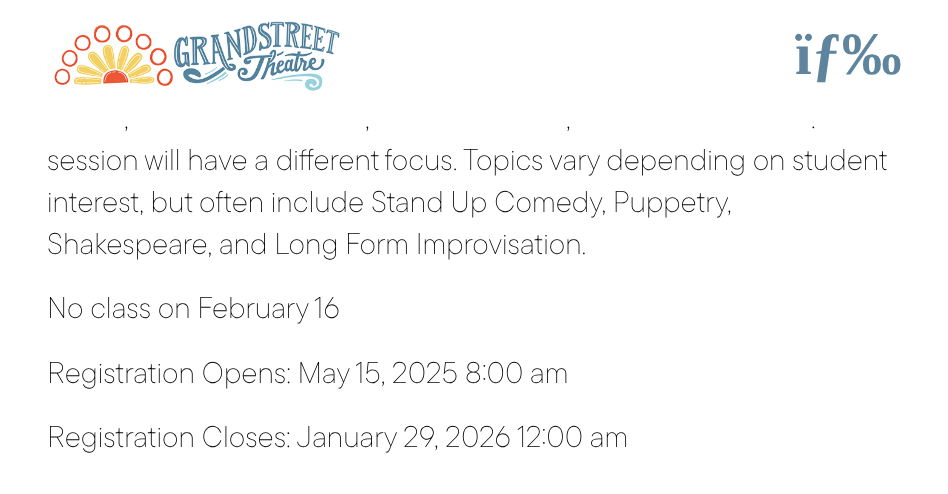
<svg xmlns="http://www.w3.org/2000/svg" width="948" height="494" viewBox="0 0 948 494">
  <rect width="100%" height="100%" fill="#fff"/>
  <image x="54" y="21" width="286" height="70" href="img/1.png"/>
  <text x="795" y="74" font-family="Liberation Serif" font-size="60" font-weight="bold" fill="#5f859e">ïƒ‰</text>
  <g font-family="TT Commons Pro" font-size="30" font-weight="100" fill="#000">
    <text x="124" y="128">,</text>
    <text x="365" y="128">,</text>
    <text x="566" y="128">,</text>
    <text x="811" y="128">.</text>
    <text x="47" y="170">session will have a different focus. Topics vary depending on student</text>
    <text x="47" y="212">interest, but often include Stand Up Comedy, Puppetry,</text>
    <text x="47" y="254">Shakespeare, and Long Form Improvisation.</text>
    <text x="47" y="318">No class on February 16</text>
    <text x="47" y="383">Registration Opens: May 15, 2025 8:00 am</text>
    <text x="47" y="447">Registration Closes: January 29, 2026 12:00 am</text>
  </g>
</svg>
